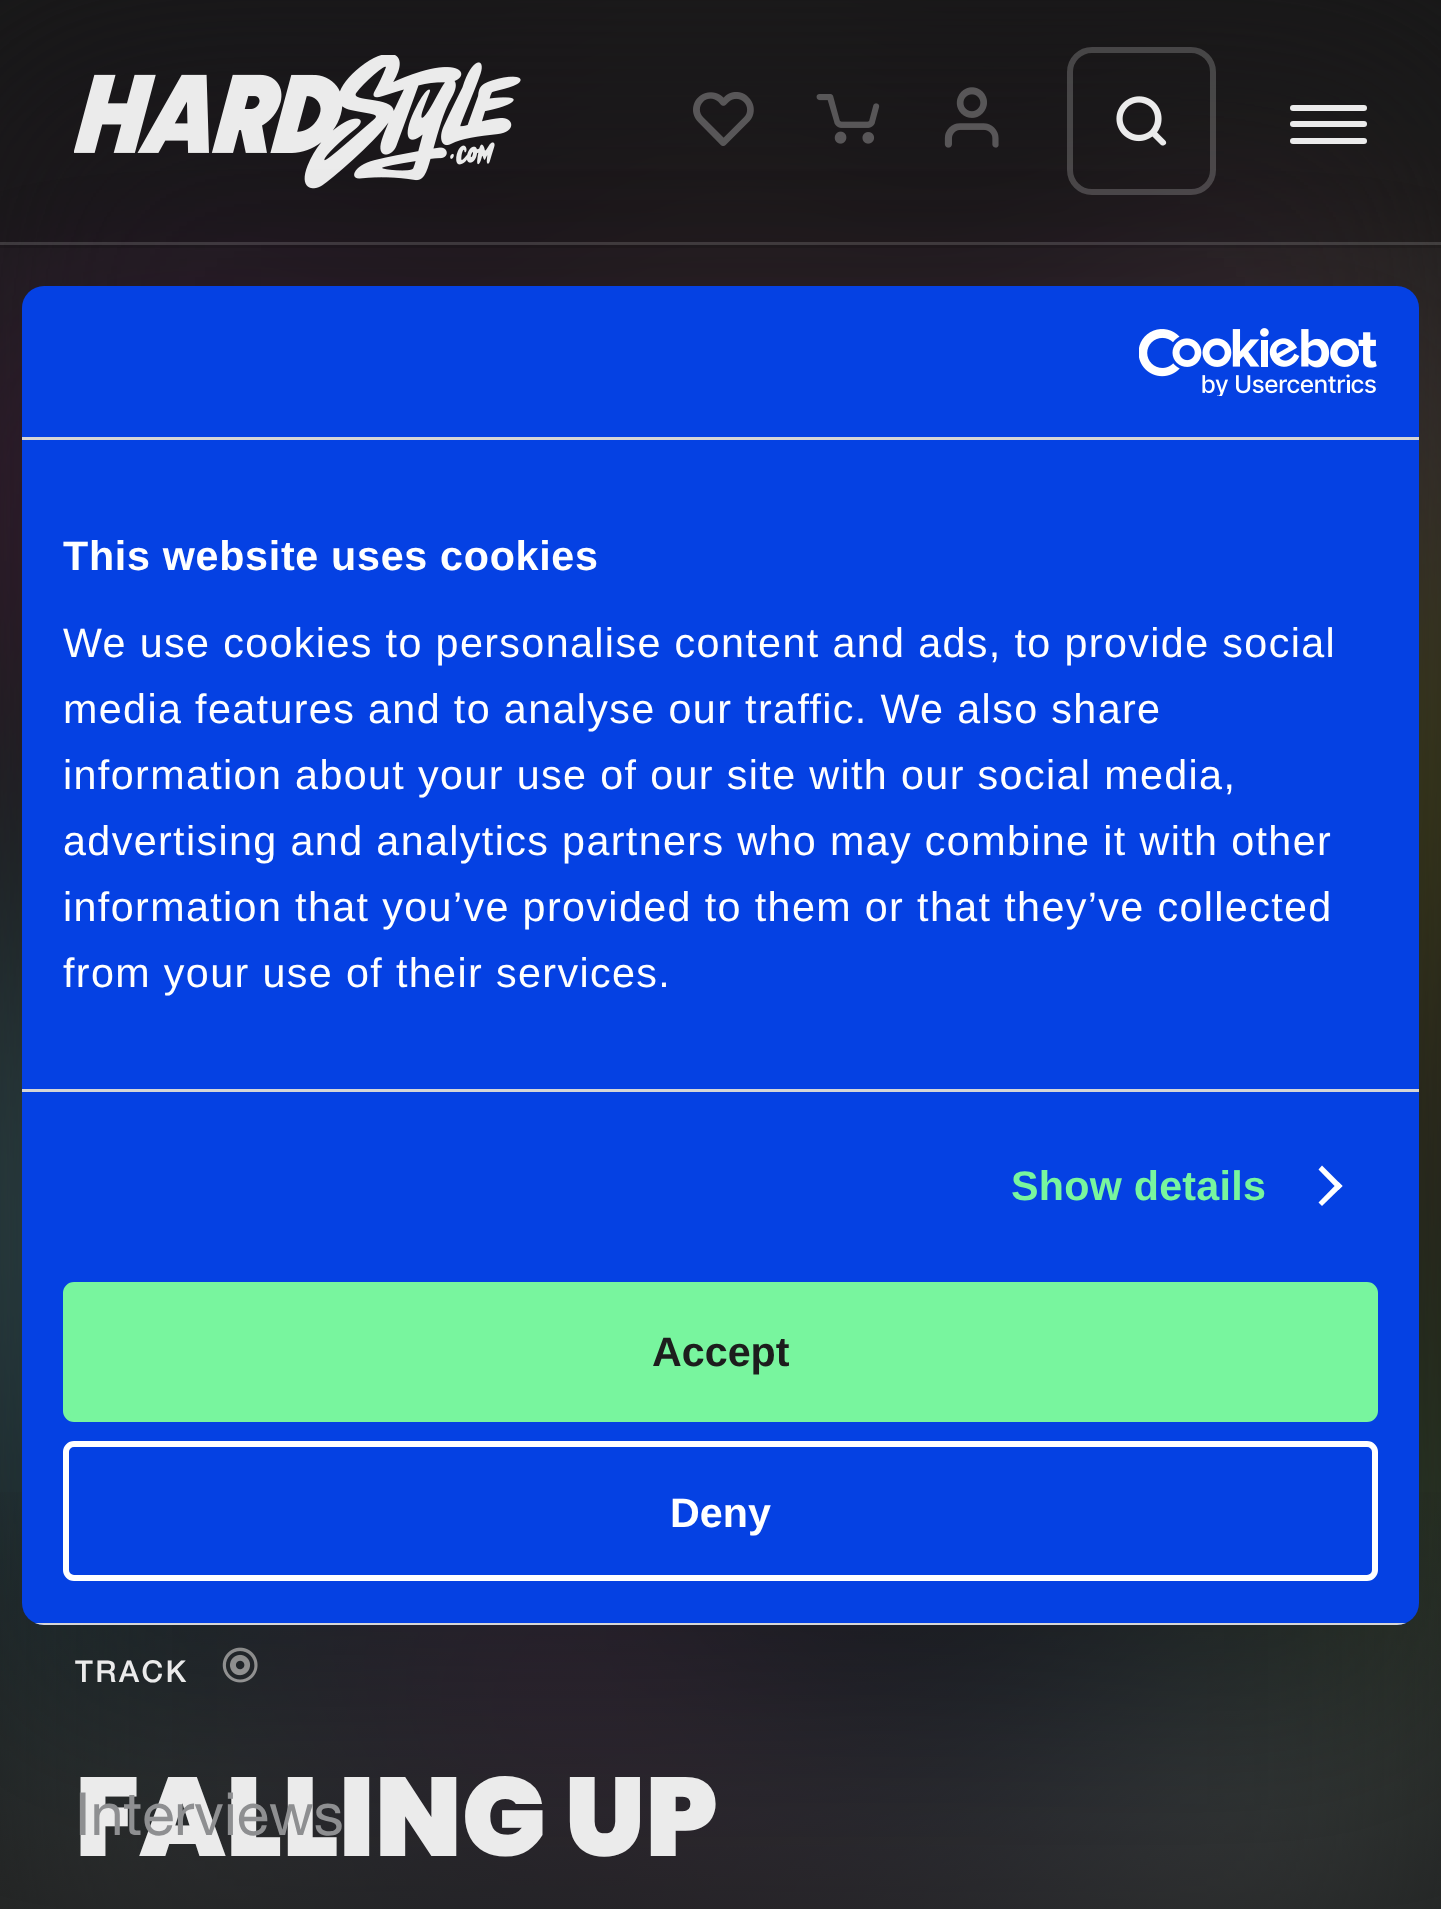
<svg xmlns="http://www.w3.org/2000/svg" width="1441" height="1909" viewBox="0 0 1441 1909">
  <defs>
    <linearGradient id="g1" gradientUnits="userSpaceOnUse" x1="0" y1="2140" x2="0" y2="1444"><stop offset="0" stop-color="#1d1d1d"/><stop offset="1" stop-color="#1d1d1d" stop-opacity="0"/></linearGradient>
    <clipPath id="clip1"><rect x="22" y="286" width="1397" height="1339" rx="22"/></clipPath>
  </defs>
  <rect width="100%" height="100%" fill="#1d1d1d"/>
  <image x="0" y="0" width="1441" height="1909" href="img/2.png"/>
  <path d="M0 1492h1441v417H0z" fill="url(#g1)"/>
  <image x="222" y="1647" width="36" height="36" href="img/3.png"/>
  <path d="M0 0h1441v248H0z" fill="#0000001a"/>
  <path d="M0 242h1441v3H0z" fill="#ffffff26"/>
  <image x="74" y="55" width="447" height="134" href="img/4.png"/>
  <image x="693" y="92" width="61" height="54" href="img/5.png"/>
  <image x="816" y="94" width="64" height="50" href="img/6.png"/>
  <image x="944" y="87" width="55" height="61" href="img/7.png"/>
  <rect x="1070" y="50" width="143" height="142" rx="22" fill="none" stroke="#ffffff33" stroke-width="6"/>
  <image x="1116" y="96" width="51" height="50" href="img/8.png"/>
  <rect x="1290" y="105" width="77" height="6" rx="3" fill="#ebebeb"/>
  <rect x="1290" y="121" width="77" height="6" rx="3" fill="#ebebeb"/>
  <rect x="1290" y="138" width="77" height="6" rx="3" fill="#ebebeb"/>
  <rect x="22" y="374" width="1397" height="1339" rx="22" fill="#0000004d" filter="blur(93.5px)"/>
  <rect x="22" y="286" width="1397" height="1339" rx="22" fill="#0541e3"/>
  <path d="M22 437h1397v3H22z" fill="#d6d6d6"/>
  <image x="1139" y="328" width="238" height="68" href="img/1.png"/>
  <path d="M22 1089h1397v3H22z" fill="#d6d6d6"/>
  <path d="M1322 1165.5L1342.5 1186L1338.5 1190L1318.5 1169.5Z" fill="#fff"/>
  <path d="M1338.5 1182L1342.5 1186L1322 1206L1318.5 1202.5Z" fill="#fff"/>
  <g clip-path="url(#clip1)">
    <path d="M35 1623h1371v2H35z" fill="#d6d6d6"/>
  </g>
  <rect x="66" y="1285" width="1309" height="134" rx="8" fill="#78f59e" stroke="#78f59e" stroke-width="6"/>
  <rect x="66" y="1444" width="1309" height="134" rx="8" fill="none" stroke="#fff" stroke-width="6"/>
  <text x="63" y="570" font-family="Liberation Sans" font-size="41.25" font-weight="bold" letter-spacing="0.7" fill="#fff">This website uses cookies</text>
  <g font-family="Liberation Sans" font-size="41.25" letter-spacing="1.38" fill="#fff">
    <text x="63" y="657">We use cookies to personalise content and ads, to provide social</text>
    <text x="63" y="723">media features and to analyse our traffic. We also share</text>
    <text x="63" y="789">information about your use of our site with our social media,</text>
    <text x="63" y="855">advertising and analytics partners who may combine it with other</text>
    <text x="63" y="921">information that you’ve provided to them or that they’ve collected</text>
    <text x="63" y="987">from your use of their services.</text>
  </g>
  <text x="1011" y="1200" font-family="Liberation Sans" font-size="41.25" font-weight="bold" letter-spacing="0.25" fill="#78f59e">Show details</text>
  <text x="652" y="1366" font-family="Liberation Sans" font-size="41.25" font-weight="bold" fill="#1d1d1d">Accept</text>
  <text x="670" y="1527" font-family="Liberation Sans" font-size="41.25" font-weight="bold" fill="#fff">Deny</text>
  <text x="75" y="1682" font-family="Helvetica Neue" font-size="30" font-weight="500" letter-spacing="2.5" fill="#ebebeb">TRACK</text>
  <text x="75" y="1856" font-family="Poppins" font-size="111.75" font-weight="900" fill="#ebebeb">FALLING UP</text>
  <text x="75" y="1835" font-family="Helvetica Neue" font-size="59.5" fill="#8e8f91">Interviews</text>
</svg>
